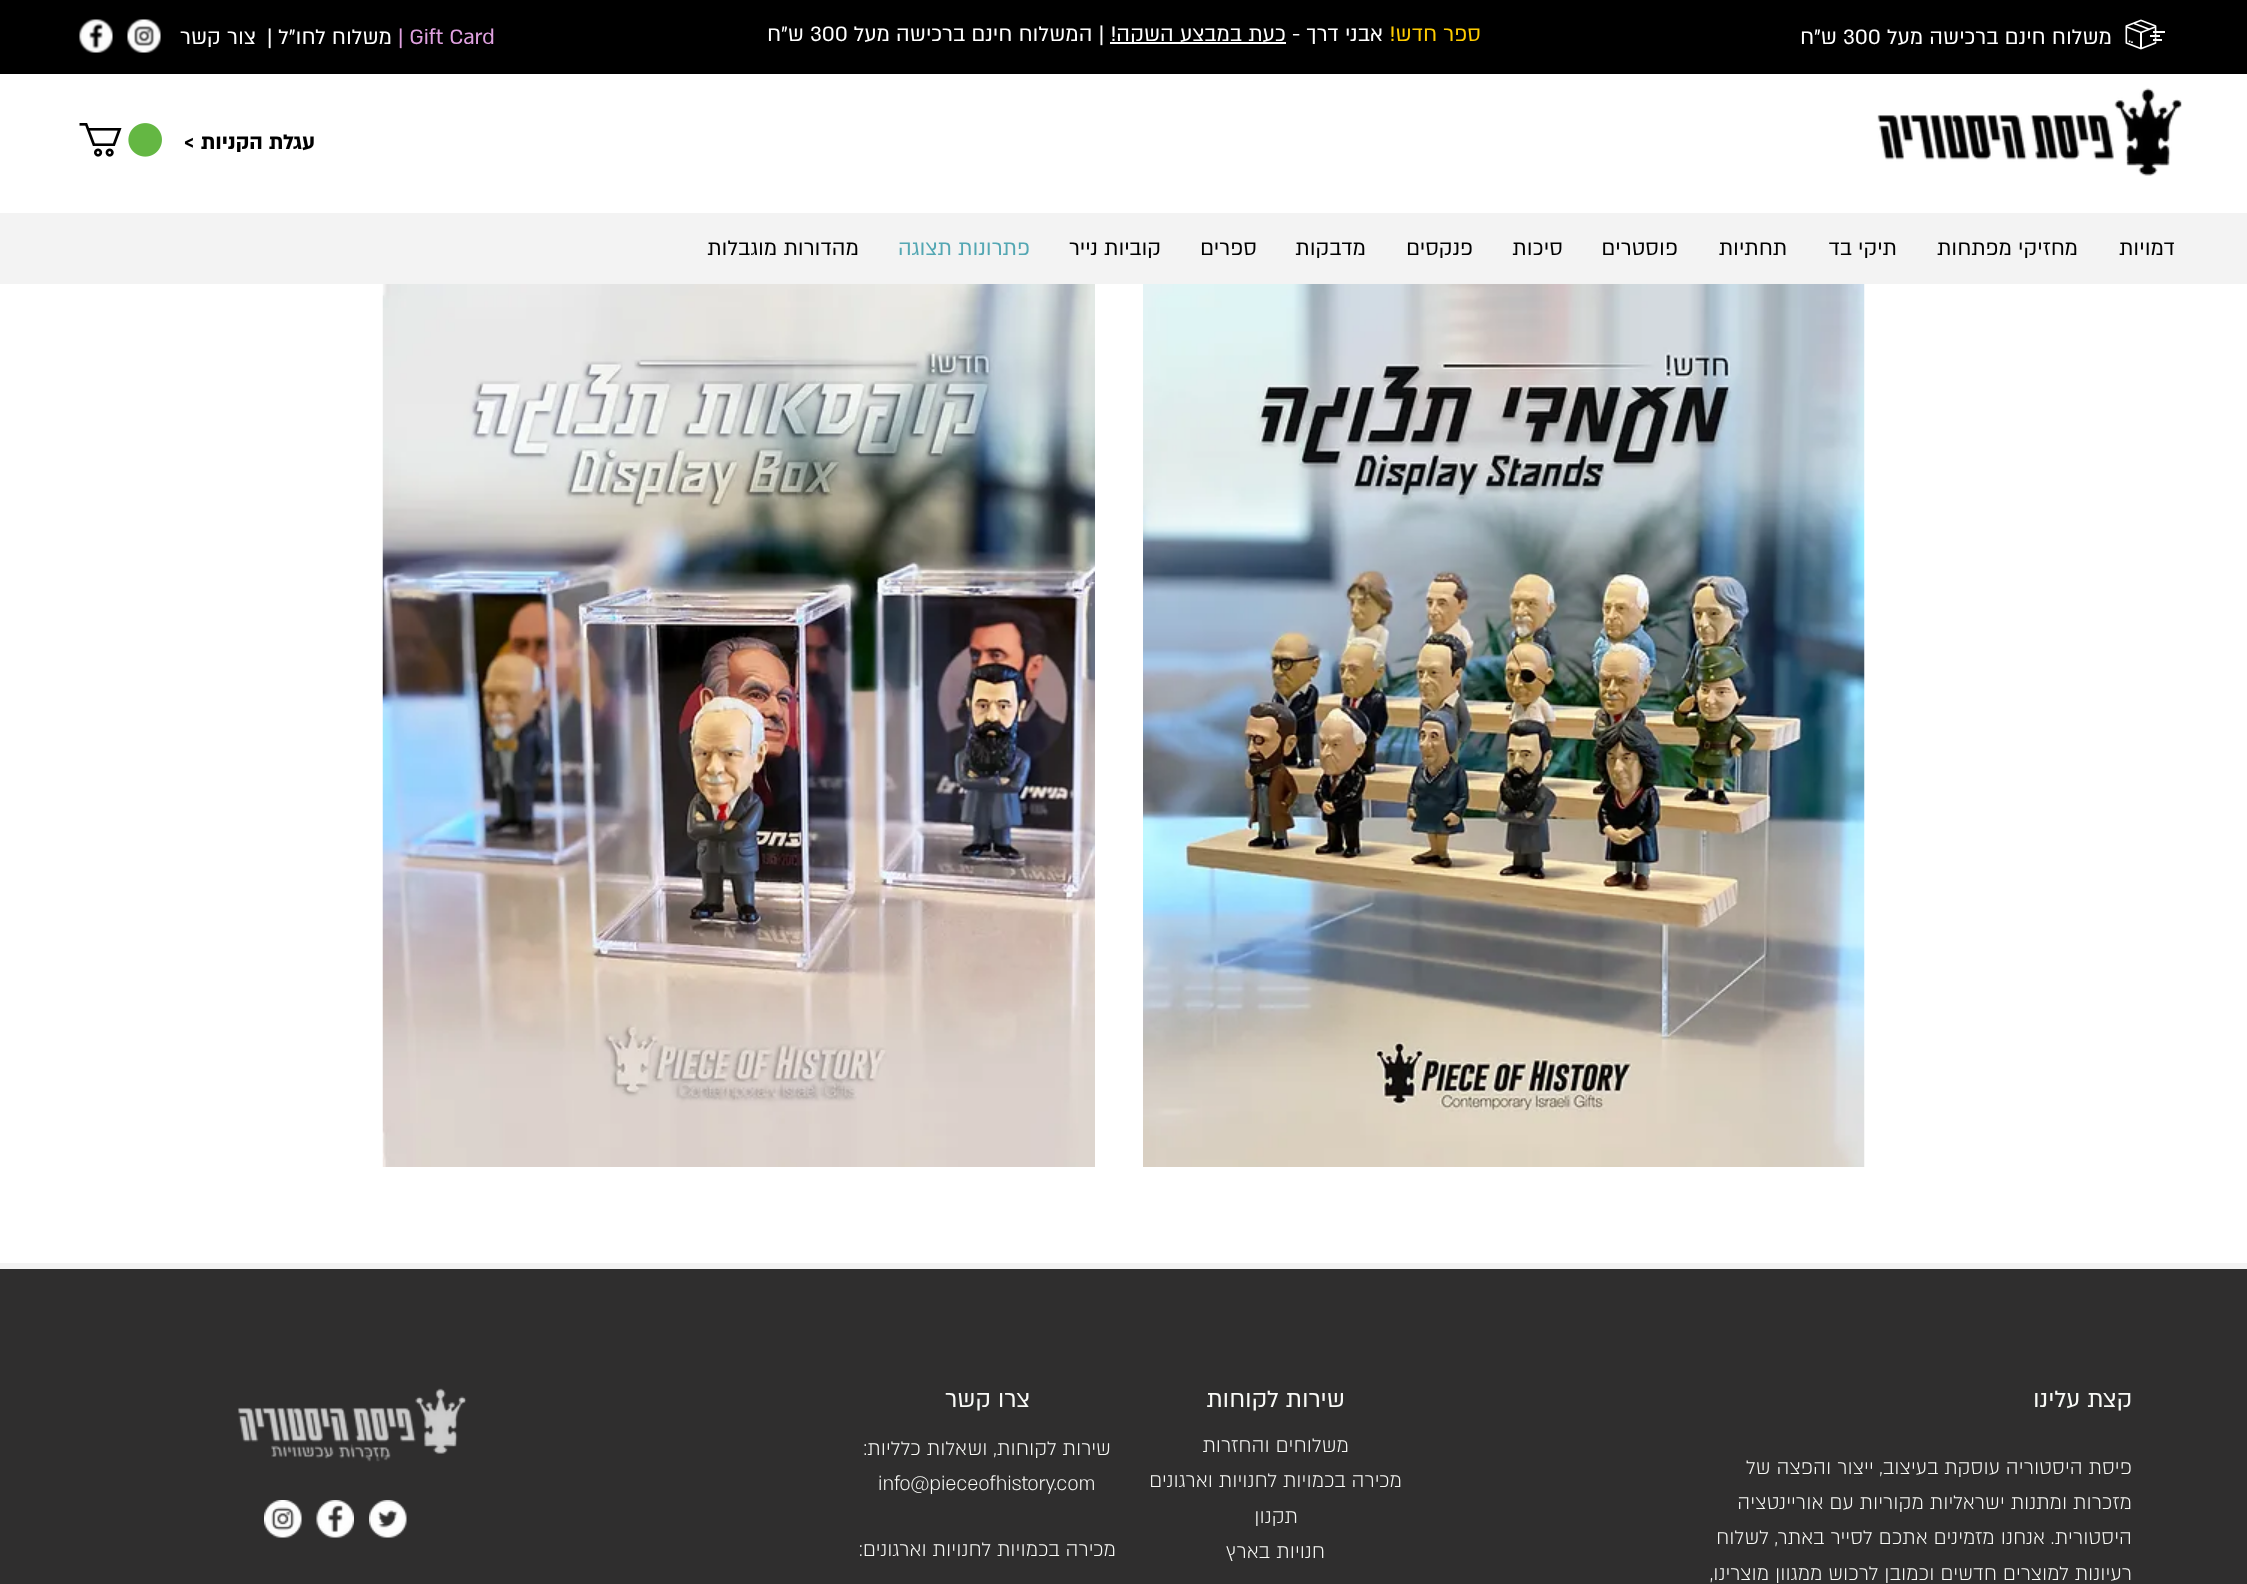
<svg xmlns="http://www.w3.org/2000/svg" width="2247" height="1584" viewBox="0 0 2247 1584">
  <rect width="100%" height="100%" fill="#fff"/>
  <path d="M0 0h2247v74H0z" fill="#000"/>
  <image x="2125" y="19" width="40" height="31" href="img/1.png"/>
  <path d="M1110 42h176v2H1110z" fill="#fff"/>
  <path d="M0 213h2247v71H0z" fill="#f3f3f3"/>
  <image x="127" y="19" width="34" height="34" href="img/2.png"/>
  <image x="79" y="19" width="34" height="34" href="img/3.png"/>
  <image x="79" y="123" width="83" height="34" href="img/4.png"/>
  <image x="1877" y="88" width="305" height="88" href="img/5.png"/>
  <image x="1143" y="284" width="722" height="883" href="img/6.png"/>
  <image x="382" y="284" width="713" height="883" href="img/7.png"/>
  <path d="M0 1269h2247v315H0z" fill="#2f2e2e"/>
  <path d="M0 1263h2247v6H0z" fill="#f3f3f3"/>
  <image x="237" y="1388" width="230" height="74" href="img/8.png"/>
  <image x="369" y="1500" width="38" height="38" href="img/9.png"/>
  <image x="316" y="1500" width="38" height="38" href="img/10.png"/>
  <image x="264" y="1500" width="38" height="38" href="img/11.png"/>
  <text x="2112" y="44" font-family="'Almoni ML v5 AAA'" font-size="24" direction="rtl" fill="#fff">משלוח חינם ברכישה מעל</text>
  <text x="1843" y="44" font-family="'Almoni ML v5 AAA'" font-size="24" fill="#fff">300</text>
  <text x="1837" y="44" font-family="'Almoni ML v5 AAA'" font-size="24" direction="rtl" fill="#fff">ש"ח</text>
  <text x="1481" y="41" font-family="'Almoni ML v5 AAA'" font-size="24" direction="rtl" fill="#fc0">ספר חדש!</text>
  <g font-family="'Almoni ML v5 AAA'" font-size="24" direction="rtl" fill="#fff">
    <text x="1383" y="41">אבני דרך -</text>
    <text x="1286" y="41">כעת במבצע השקה!</text>
    <text x="1104" y="41">| המשלוח חינם ברכישה מעל</text>
  </g>
  <text x="810" y="41" font-family="'Almoni ML v5 AAA'" font-size="24" fill="#fff">300</text>
  <text x="804" y="41" font-family="'Almoni ML v5 AAA'" font-size="24" direction="rtl" fill="#fff">ש"ח</text>
  <g font-family="'Almoni ML v5 AAA'" font-size="24" direction="rtl" fill="#000">
    <text x="2175" y="255">דמויות</text>
    <text x="2078" y="255">מחזיקי מפתחות</text>
    <text x="1897" y="255">תיקי בד</text>
    <text x="1787" y="255">תחתיות</text>
    <text x="1678" y="255">פוסטרים</text>
    <text x="1563" y="255">סיכות</text>
    <text x="1473" y="255">פנקסים</text>
    <text x="1366" y="255">מדבקות</text>
    <text x="1257" y="255">ספרים</text>
    <text x="1161" y="255">קוביות נייר</text>
  </g>
  <text x="1030" y="255" font-family="'Almoni ML v5 AAA'" font-size="24" direction="rtl" fill="#54a7b3">פתרונות תצוגה</text>
  <text x="859" y="255" font-family="'Almoni ML v5 AAA'" font-size="24" direction="rtl" fill="#000">מהדורות מוגבלות</text>
  <text x="398" y="44" font-family="'Almoni ML v5 AAA'" font-size="24" fill="#e0a1e0">| Gift Card</text>
  <text x="392" y="44" font-family="'Almoni ML v5 AAA'" font-size="24" direction="rtl" fill="#fff">משלוח לחו"ל</text>
  <text x="267" y="44" font-family="'Almoni ML v5 AAA'" font-size="24" fill="#fff">|</text>
  <text x="256" y="44" font-family="'Almoni ML v5 AAA'" font-size="24" direction="rtl" fill="#fff">צור קשר</text>
  <g font-family="'Almoni ML v5 AAA'" font-size="24" font-weight="bold" direction="rtl" fill="#000">
    <text x="315" y="149">עג</text>
    <text x="294" y="149">לת הקניות &gt;</text>
  </g>
  <text x="2132" y="1407" font-family="'Almoni ML v5 AAA'" font-size="27" direction="rtl" fill="#f9faf7">קצת עלינו</text>
  <g font-family="'Almoni ML v5 AAA'" font-size="22.5" font-weight="300" direction="rtl" fill="#f9faf7">
    <text x="2132" y="1474">פיסת היסטוריה עוסקת בעיצוב, ייצור והפצה של</text>
    <text x="2132" y="1509">מזכרות ומתנות ישראליות מקוריות עם אוריינטציה</text>
    <text x="2132" y="1544">היסטורית. אנחנו מזמינים אתכם לסייר באתר, לשלוח</text>
    <text x="2132" y="1580">רעיונות למוצרים חדשים וכמובן לרכוש ממגוון מוצרינו,</text>
  </g>
  <text x="1345" y="1407" font-family="'Almoni ML v5 AAA'" font-size="27" direction="rtl" fill="#f9faf7">שירות לקוחות</text>
  <g font-family="'Almoni ML v5 AAA'" font-size="22.5" font-weight="300" direction="rtl" fill="#f9faf7">
    <text x="1349" y="1452">משלוחים והחזרות</text>
    <text x="1402" y="1487">מכירה בכמויות לחנויות וארגונים</text>
    <text x="1298" y="1523">תקנון</text>
    <text x="1325" y="1558">חנ</text>
    <text x="1305" y="1558">ויות</text>
    <text x="1270" y="1558">בארץ</text>
  </g>
  <text x="1030" y="1407" font-family="'Almoni ML v5 AAA'" font-size="27" direction="rtl" fill="#f9faf7">צרו קשר</text>
  <g font-family="'Almoni ML v5 AAA'" font-size="22.5" font-weight="300" direction="rtl" fill="#f9faf7">
    <text x="1111" y="1455">שירות לקוחות, וש</text>
    <text x="967" y="1455">אלות כלליות:</text>
  </g>
  <text x="878" y="1490" font-family="'Almoni ML v5 AAA'" font-size="22.5" font-weight="300" fill="#f9faf7">info@pieceofhistory.com</text>
  <g font-family="'Almoni ML v5 AAA'" font-size="22.5" font-weight="300" direction="rtl" fill="#f9faf7">
    <text x="1116" y="1556">מכירה בכמויות לחנו</text>
    <text x="956" y="1556">יות וארגונים:</text>
  </g>
</svg>
